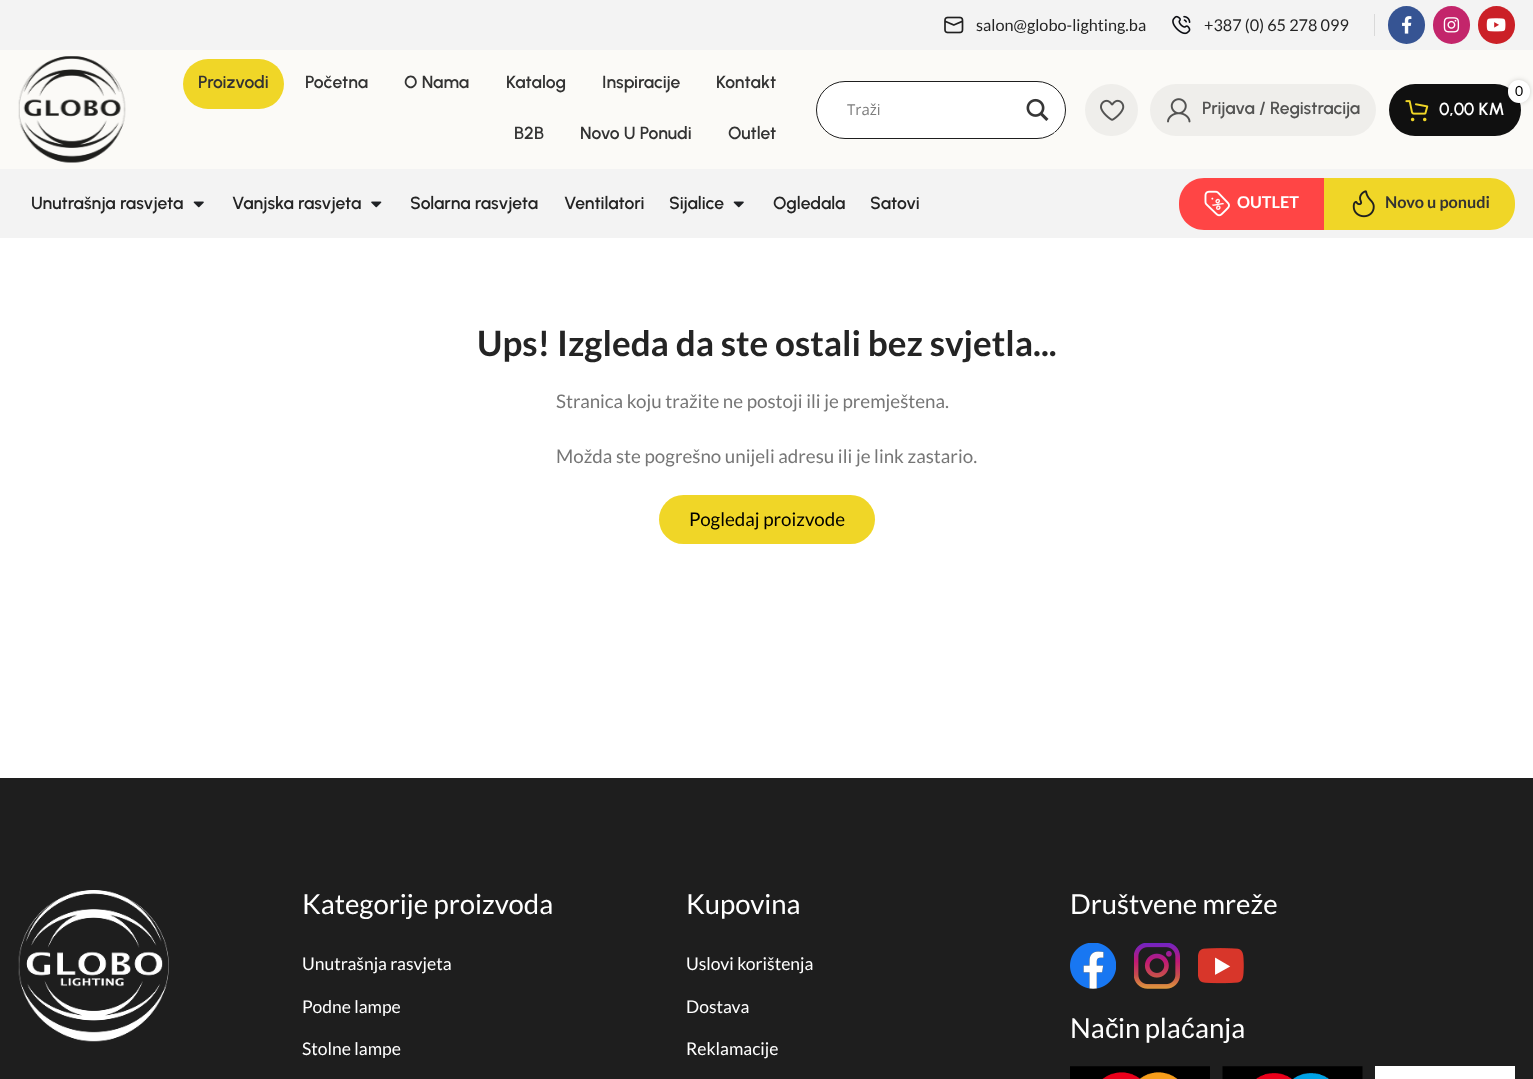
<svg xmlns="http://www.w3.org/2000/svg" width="1533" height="1079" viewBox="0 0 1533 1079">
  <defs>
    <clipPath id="clip1"><path d="M1020 84h35v52H1020z"/></clipPath>
    <clipPath id="clip2"><rect x="846" y="93" width="168" height="35" rx="17.5"/></clipPath>
  </defs>
  <rect width="100%" height="100%" fill="#fff"/>
  <path d="M0 0h1533v50H0z" fill="#f3f3f3"/>
  <image x="944" y="16" width="20" height="18" href="img/1.png"/>
  <image x="1172" y="15" width="19" height="20" href="img/2.png"/>
  <path d="M1374 14h1v22H1374z" fill="#d9d9d9"/>
  <rect x="1388" y="6" width="37" height="38" rx="18.5" fill="#365493"/>
  <image x="1402" y="16" width="10" height="18" href="img/3.png"/>
  <rect x="1433" y="6" width="37" height="38" rx="18.5" fill="#c3256b"/>
  <image x="1443" y="17" width="17" height="16" href="img/4.png"/>
  <rect x="1478" y="6" width="37" height="38" rx="18.5" fill="#cb2027"/>
  <image x="1486" y="18" width="20" height="14" href="img/5.png"/>
  <path d="M0 50h1533v119H0z" fill="#fbfaf7"/>
  <image x="18" y="56" width="108" height="107" href="img/6.png"/>
  <rect x="183" y="59" width="101" height="50" rx="25" fill="#f0d627"/>
  <rect x="816.5" y="81.5" width="249" height="57" rx="28.5" fill="#fff" stroke="#1e1e1e"/>
  <g clip-path="url(#clip1)">
    <path d="M1019 85V138H896V83H1038C1041 83 1045 84 1048 85ZM1054 133C1068 122 1068 99 1054 88Z" fill="#ffffffa3" fill-rule="evenodd"/>
  </g>
  <image x="1026" y="98" width="23" height="23" href="img/7.png"/>
  <rect x="1085" y="84" width="53" height="52" rx="26" fill="#efeeeb"/>
  <image x="1100" y="99" width="25" height="22" href="img/8.png"/>
  <rect x="1150" y="84" width="226" height="52" rx="26" fill="#efeeeb"/>
  <image x="1167" y="98" width="24" height="25" href="img/9.png"/>
  <rect x="1389" y="84" width="132" height="52" rx="26" fill="#101010"/>
  <rect x="1508" y="80" width="22" height="23" rx="11" fill="#0000002b" filter="blur(2.5px)"/>
  <rect x="1508" y="80" width="22" height="23" rx="11" fill="#fff"/>
  <image x="1405" y="100" width="24" height="22" href="img/10.png"/>
  <path d="M0 169h1533v69H0z" fill="#f3f3f3"/>
  <image x="193" y="201" width="11" height="7" href="img/11.png"/>
  <image x="371" y="201" width="11" height="7" href="img/12.png"/>
  <image x="733" y="201" width="11" height="7" href="img/11.png"/>
  <path d="M1204 178H1324V230H1204C1190 230 1179 219 1179 205V203C1179 189 1190 178 1204 178Z" fill="#ff4545"/>
  <image x="1204" y="190" width="26" height="27" href="img/13.png"/>
  <path d="M1324 178H1490C1504 178 1515 189 1515 203V205C1515 219 1504 230 1490 230H1324Z" fill="#f0d627"/>
  <image x="1352" y="190" width="23" height="28" href="img/14.png"/>
  <rect x="659" y="495" width="216" height="49" rx="24.5" fill="#f0d627"/>
  <path d="M0 778h1533v301H0z" fill="#1e1e1e"/>
  <image x="18" y="890" width="151" height="152" href="img/15.png"/>
  <image x="1070" y="943" width="46" height="46" href="img/16.png"/>
  <image x="1134" y="943" width="46" height="46" href="img/17.png"/>
  <image x="1198" y="948" width="46" height="36" href="img/18.png"/>
  <image x="1070" y="1066" width="140" height="13" href="img/19.png"/>
  <image x="1222" y="1066" width="141" height="13" href="img/20.png"/>
  <path d="M1375 1066h140v13H1375z" fill="#fff"/>
  <g font-family="Lato" font-size="16.25" fill="#242424">
    <text x="976" y="31">salon@globo-lighting.ba</text>
    <text x="1204" y="31">+387 (0) 65 278 099</text>
  </g>
  <g font-family="Urbanist" font-size="17.5" font-weight="600" fill="#333">
    <text x="198" y="88">Proizvodi</text>
    <text x="305" y="88">Početna</text>
    <text x="404" y="88">O Nama</text>
    <text x="506" y="88">Katalog</text>
    <text x="602" y="88">Inspiracije</text>
    <text x="716" y="88">Kontakt</text>
    <text x="514" y="139">B2B</text>
    <text x="580" y="139">Novo U Ponudi</text>
    <text x="728" y="139">Outlet</text>
  </g>
  <g clip-path="url(#clip2)">
    <text x="847" y="115" font-family="Open Sans" font-size="15" fill="#7d7d7d">Traži</text>
  </g>
  <text x="1202" y="114" font-family="Urbanist" font-size="17.5" font-weight="600" fill="#535352">Prijava / Registracija</text>
  <text x="1515" y="96" font-family="Lato" font-size="14" fill="#000">0</text>
  <text x="1439" y="115" font-family="Urbanist" font-size="17.5" font-weight="600" fill="#fff">0,00 KM</text>
  <g font-family="Urbanist" font-size="17.5" font-weight="600" fill="#242424">
    <text x="31" y="209">Unutrašnja rasvjeta</text>
    <text x="232" y="209">Vanjska rasvjeta</text>
    <text x="410" y="209">Solarna rasvjeta</text>
    <text x="564" y="209">Ventilatori</text>
    <text x="669" y="209">Sijalice</text>
    <text x="773" y="209">Ogledala</text>
    <text x="870" y="209">Satovi</text>
  </g>
  <text x="1237" y="208" font-family="Lato" font-size="16.25" font-weight="bold" fill="#fff">OUTLET</text>
  <text x="1385" y="208" font-family="Lato" font-size="16.25" font-weight="bold" fill="#333">Novo u ponudi</text>
  <text x="477" y="356" font-family="Lato" font-size="35" font-weight="bold" fill="#242424">Ups! Izgleda da ste ostali bez svjetla...</text>
  <g font-family="Lato" font-size="18.75" fill="#767676">
    <text x="556" y="408">Stranica koju tražite ne postoji ili je premještena.</text>
    <text x="556" y="463">Možda ste pogrešno unijeli adresu ili je link zastario.</text>
  </g>
  <text x="689" y="526" font-family="Lato" font-size="18.75" fill="#000">Pogledaj proizvode</text>
  <text x="302" y="914" font-family="Lato" font-size="27.5" fill="#fff">Kategorije proizvoda</text>
  <g font-family="Lato" font-size="17.5" fill="#fff">
    <text x="302" y="970">Unutrašnja rasvjeta</text>
    <text x="302" y="1013">Podne lampe</text>
    <text x="302" y="1055">Stolne lampe</text>
  </g>
  <text x="686" y="914" font-family="Lato" font-size="27.5" fill="#fff">Kupovina</text>
  <g font-family="Lato" font-size="17.5" fill="#fff">
    <text x="686" y="970">Uslovi korištenja</text>
    <text x="686" y="1013">Dostava</text>
    <text x="686" y="1055">Reklamacije</text>
  </g>
  <g font-family="Lato" font-size="27.5" fill="#fff">
    <text x="1070" y="914">Društvene mreže</text>
    <text x="1070" y="1038">Na</text>
  </g>
  <text x="1105" y="1038" font-family="Liberation Sans" font-size="27.5" fill="#fff">č</text>
  <text x="1118" y="1038" word-spacing="-1" font-family="Lato" font-size="27.5" fill="#fff">in pla</text>
  <text x="1181" y="1038" font-family="Liberation Sans" font-size="27.5" fill="#fff">ć</text>
  <text x="1195" y="1038" font-family="Lato" font-size="27.5" fill="#fff">anja</text>
</svg>
